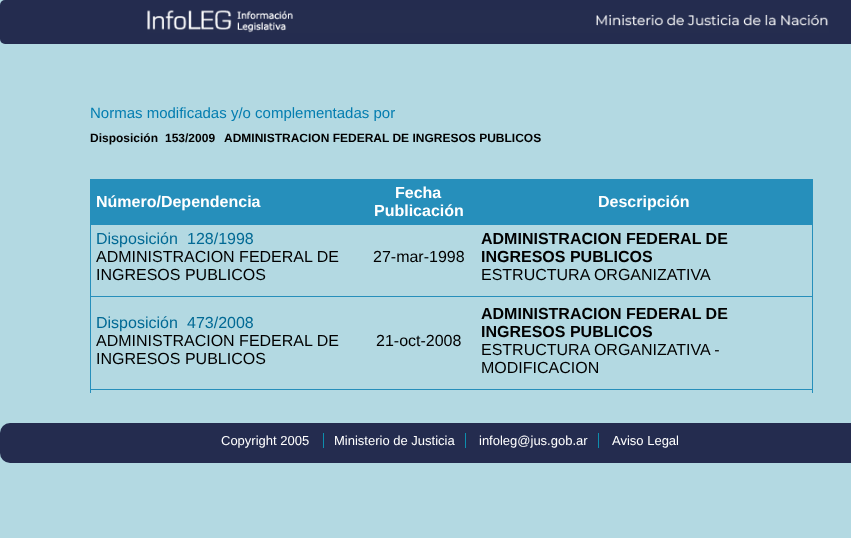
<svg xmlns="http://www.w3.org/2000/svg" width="851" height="538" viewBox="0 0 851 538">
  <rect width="100%" height="100%" fill="#b3d9e2"/>
  <rect width="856" height="44" rx="5" fill="#242c4f"/>
  <image x="147" y="10" width="682" height="23" href="img/1.png"/>
  <path d="M812 179h1v214H812z" fill="#268fbb"/>
  <path d="M90 179h1v214H90z" fill="#268fbb"/>
  <path d="M91 179h721v46H91z" fill="#268fbb"/>
  <path d="M91 296h721v1H91z" fill="#278fbb"/>
  <path d="M91 389h721v1H91z" fill="#278fbb"/>
  <rect y="423" width="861" height="40" rx="10" fill="#242c4f"/>
  <path d="M323 433h1v15H323z" fill="#0d8eae"/>
  <path d="M465 433h1v15H465z" fill="#0d8eae"/>
  <path d="M598 433h1v15H598z" fill="#0d8eae"/>
  <text x="90" y="118" font-family="Liberation Sans" font-size="15" fill="#037db0">Normas modificadas y/o complementadas por</text>
  <g font-family="Liberation Sans" font-size="12" font-weight="bold" fill="#000">
    <text x="90" y="142">Disposición</text>
    <text x="165" y="142">153/2009</text>
    <text x="224" y="142">ADMINISTRACION FEDERAL DE INGRESOS PUBLICOS</text>
  </g>
  <g font-family="Liberation Sans" font-size="16" font-weight="bold" fill="#fff">
    <text x="96" y="207">Número/Dependencia</text>
    <text x="395" y="198">Fecha</text>
    <text x="374" y="216">Publicación</text>
    <text x="598" y="207">Descripción</text>
  </g>
  <g font-family="Liberation Sans" font-size="16" fill="#016994">
    <text x="96" y="244">Disposición</text>
    <text x="187" y="244">128/1998</text>
  </g>
  <g font-family="Liberation Sans" font-size="16" fill="#000">
    <text x="96" y="262">ADMINISTRACION FEDERAL DE</text>
    <text x="96" y="280">INGRESOS PUBLICOS</text>
    <text x="373" y="262">27-mar-1998</text>
  </g>
  <g font-family="Liberation Sans" font-size="16" font-weight="bold" fill="#000">
    <text x="481" y="244">ADMINISTRACION FEDERAL DE</text>
    <text x="481" y="262">INGRESOS PUBLICOS</text>
  </g>
  <text x="481" y="280" font-family="Liberation Sans" font-size="16" fill="#000">ESTRUCTURA ORGANIZATIVA</text>
  <g font-family="Liberation Sans" font-size="16" fill="#016994">
    <text x="96" y="328">Disposición</text>
    <text x="187" y="328">473/2008</text>
  </g>
  <g font-family="Liberation Sans" font-size="16" fill="#000">
    <text x="96" y="346">ADMINISTRACION FEDERAL DE</text>
    <text x="96" y="364">INGRESOS PUBLICOS</text>
    <text x="376" y="346">21-oct-2008</text>
  </g>
  <g font-family="Liberation Sans" font-size="16" font-weight="bold" fill="#000">
    <text x="481" y="319">ADMINISTRACION FEDERAL DE</text>
    <text x="481" y="337">INGRESOS PUBLICOS</text>
  </g>
  <g font-family="Liberation Sans" font-size="16" fill="#000">
    <text x="481" y="355">ESTRUCTURA ORGANIZATIVA -</text>
    <text x="481" y="373">MODIFICACION</text>
  </g>
  <g font-family="Liberation Sans" font-size="13" fill="#fff">
    <text x="221" y="445">Copyright 2005</text>
    <text x="334" y="445">Ministerio de Justicia</text>
    <text x="479" y="445">infoleg@jus.gob.ar</text>
    <text x="612" y="445">Aviso Legal</text>
  </g>
</svg>
